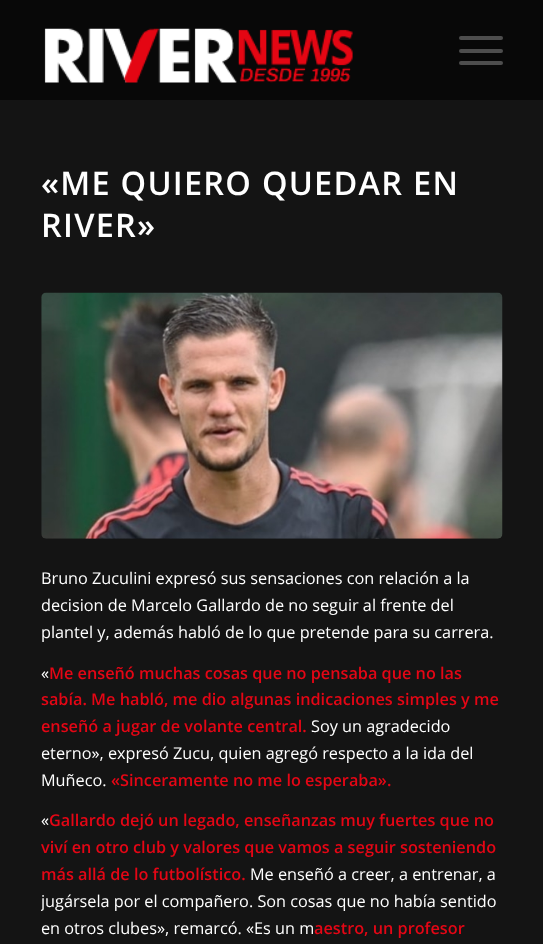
<svg xmlns="http://www.w3.org/2000/svg" width="543" height="944" viewBox="0 0 543 944">
  <defs>
    <clipPath id="clip1"><path d="M41 163h462v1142H41z"/></clipPath>
  </defs>
  <rect width="100%" height="100%" fill="#141414"/>
  <path d="M0 0h543v100H0z" fill="#080808"/>
  <image x="44" y="28" width="309" height="55" href="img/1.png"/>
  <rect x="459" y="49" width="44" height="4" rx="2" fill="#4d4d4d"/>
  <rect x="459" y="36" width="44" height="4" rx="2" fill="#4d4d4d"/>
  <rect x="459" y="61" width="44" height="4" rx="2" fill="#4d4d4d"/>
  <image x="41" y="292" width="462" height="247" href="img/2.png"/>
  <g font-family="Open Sans" font-size="32.5" font-weight="600" letter-spacing="1.25" fill="#fff">
    <text x="41" y="195">«ME QUIERO QUEDAR EN</text>
    <text x="41" y="237">RIVER»</text>
  </g>
  <g font-family="Open Sans" font-size="16.25" fill="#fff">
    <text x="41" y="584">Bruno Zuculini expresó sus sensaciones con relación a la</text>
    <text x="41" y="611">decision de Marcelo Gallardo de no seguir al frente del</text>
    <text x="41" y="638">plantel y, además habló de lo que pretende para su carrera.</text>
    <text x="41" y="679">«</text>
  </g>
  <g font-family="Open Sans" font-size="16.25" font-weight="600" fill="#e40615">
    <text x="49" y="679">Me enseñó muchas cosas que no pensaba que no las</text>
    <text x="41" y="705">sabía. Me habló, me dio algunas indicaciones simples y me</text>
    <text x="41" y="732">enseñó a jugar de volante central.</text>
  </g>
  <g font-family="Open Sans" font-size="16.25" fill="#fff">
    <text x="311" y="732">Soy un agradecido</text>
    <text x="41" y="759">eterno», expresó Zucu, quien agregó respecto a la ida del</text>
    <text x="41" y="786">Muñeco.</text>
  </g>
  <text x="111" y="786" font-family="Open Sans" font-size="16.25" font-weight="600" fill="#e40615">«Sinceramente no me lo esperaba».</text>
  <text x="41" y="826" font-family="Open Sans" font-size="16.25" fill="#fff">«</text>
  <g font-family="Open Sans" font-size="16.25" font-weight="600" fill="#e40615">
    <text x="49" y="826">Gallardo dejó un legado, enseñanzas muy fuertes que no</text>
    <text x="41" y="853">viví en otro club y valores que vamos a seguir sosteniendo</text>
    <text x="41" y="880">más allá de lo futbolístico.</text>
  </g>
  <text x="250" y="880" font-family="Open Sans" font-size="16.25" fill="#fff">Me enseñó a creer, a entrenar, a</text>
  <g clip-path="url(#clip1)">
    <text x="41" y="907" font-family="Open Sans" font-size="16.25" fill="#fff">jugársela por el compañero. Son cosas que no había sentido</text>
  </g>
  <text x="41" y="934" font-family="Open Sans" font-size="16.25" fill="#fff">en otros clubes», remarcó. «Es un m</text>
  <text x="314" y="934" font-family="Open Sans" font-size="16.25" font-weight="600" fill="#e40615">aestro, un profesor</text>
</svg>
